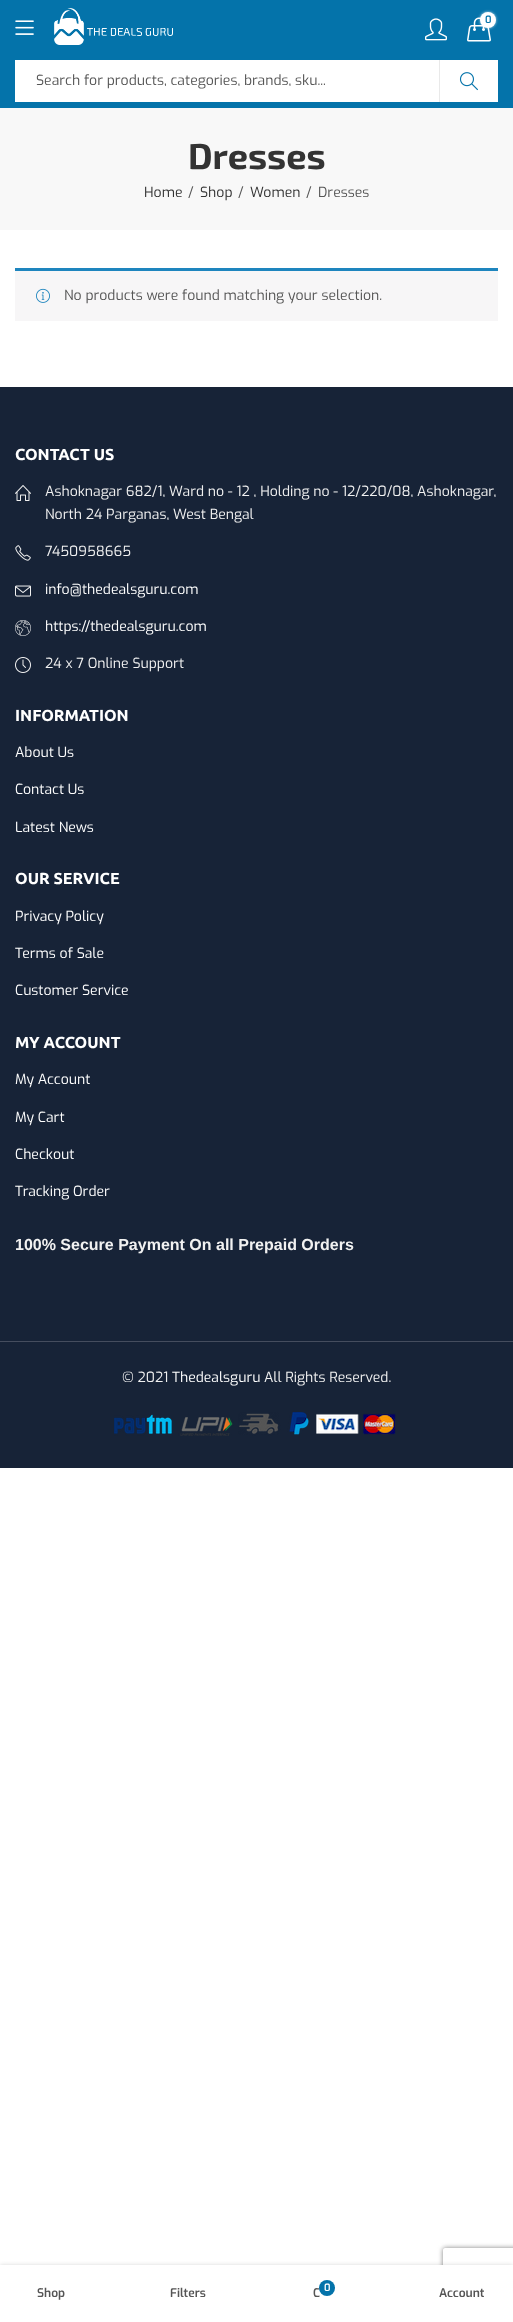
<svg xmlns="http://www.w3.org/2000/svg" width="513" height="2322" viewBox="0 0 513 2322">
  <defs>
    <clipPath id="clip1"><path d="M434 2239H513V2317H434ZM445 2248H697C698 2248 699 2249 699 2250V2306C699 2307 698 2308 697 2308H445C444 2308 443 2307 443 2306V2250C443 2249 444 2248 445 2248Z" clip-rule="evenodd"/></clipPath>
  </defs>
  <rect width="100%" height="100%" fill="#fff"/>
  <path d="M0 0h513v108H0z" fill="#0473aa"/>
  <image x="15" y="20" width="19" height="15" href="img/1.png"/>
  <image x="54" y="8" width="119" height="37" href="img/2.png"/>
  <image x="425" y="18" width="22" height="23" href="img/3.png"/>
  <image x="467" y="17" width="24" height="25" href="img/4.png"/>
  <rect x="480" y="12" width="16" height="16" rx="8" fill="#ffffffb3" filter="blur(1.5px)"/>
  <circle cx="488" cy="20" r="8" fill="#fff"/>
  <path d="M15 60h424v42H15z" fill="#fff"/>
  <path d="M439 60h1v42H439z" fill="#e9e9e9"/>
  <path d="M440 60h58v42H440z" fill="#fff"/>
  <image x="459" y="72" width="19" height="19" href="img/5.png"/>
  <path d="M0 108h513v122H0z" fill="#f8f8f8"/>
  <path d="M15 271h483v50H15z" fill="#f7f6f7"/>
  <path d="M15 268h483v3H15z" fill="#1e85be"/>
  <image x="36" y="288" width="14" height="15" href="img/6.png"/>
  <path d="M0 387h513v954H0z" fill="#172337"/>
  <image x="15" y="485" width="16" height="16" href="img/7.png"/>
  <image x="15" y="545" width="16" height="16" href="img/8.png"/>
  <image x="15" y="585" width="16" height="12" href="img/9.png"/>
  <image x="15" y="620" width="16" height="16" href="img/10.png"/>
  <image x="15" y="657" width="16" height="16" href="img/11.png"/>
  <path d="M0 1342h513v126H0z" fill="#172337"/>
  <path d="M0 1341h513v1H0z" fill="#454d5e"/>
  <image x="114" y="1412" width="282" height="24" href="img/12.png"/>
  <g clip-path="url(#clip1)">
    <rect x="443" y="2248" width="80" height="60" rx="2" fill="#808080" filter="blur(2.5px)"/>
  </g>
  <path d="M0 2265h513v57H0z" fill="#00000026" filter="blur(2px)"/>
  <path d="M0 2265h513v57H0z" fill="#fff"/>
  <rect x="319" y="2280" width="16" height="16" rx="8" fill="#ffffffb3" filter="blur(1.5px)"/>
  <text x="485" y="23" font-family="Exo" font-size="10" font-weight="600" fill="#0473aa">0</text>
  <text x="36" y="85" font-family="Exo" font-size="14" fill="#555">Search for products, categories, brands, sku...</text>
  <text x="188" y="169" font-family="'Exo 2'" font-size="36" font-weight="bold" fill="#333">Dresses</text>
  <text x="144" y="197" font-family="Exo" font-size="14" fill="#333">Home</text>
  <text x="188" y="197" font-family="Exo" font-size="14" fill="#555">/</text>
  <text x="200" y="197" font-family="Exo" font-size="14" fill="#333">Shop</text>
  <text x="238" y="197" font-family="Exo" font-size="14" fill="#555">/</text>
  <text x="250" y="197" font-family="Exo" font-size="14" fill="#333">Women</text>
  <g font-family="Exo" font-size="14" fill="#555">
    <text x="306" y="197">/</text>
    <text x="318" y="197">Dresses</text>
    <text x="64" y="300">No products were found matching your selection.</text>
  </g>
  <text x="15" y="460" font-family="Ubuntu" font-size="16" font-weight="bold" fill="#fff">CONTACT US</text>
  <g font-family="Exo" font-size="14" fill="#f1f1f1">
    <text x="45" y="496">Ashoknagar 682/1, Ward no - 12 , Holding no - 12/220/08, Ashoknagar,</text>
    <text x="45" y="519">North 24 Parganas, West Bengal</text>
    <text x="45" y="556">7450958665</text>
  </g>
  <g font-family="Exo" font-size="14" fill="#fff">
    <text x="45" y="594">info@thedealsguru.com</text>
    <text x="45" y="631">https://thedealsguru.com</text>
  </g>
  <text x="45" y="668" font-family="Exo" font-size="14" fill="#f1f1f1">24 x 7 Online Support</text>
  <text x="15" y="721" font-family="Ubuntu" font-size="16" font-weight="bold" fill="#fff">INFORMATION</text>
  <g font-family="Exo" font-size="14" fill="#fff">
    <text x="15" y="757">About Us</text>
    <text x="15" y="794">Contact Us</text>
    <text x="15" y="832">Latest News</text>
  </g>
  <text x="15" y="884" font-family="Ubuntu" font-size="16" font-weight="bold" fill="#fff">OUR SERVICE</text>
  <g font-family="Exo" font-size="14" fill="#fff">
    <text x="15" y="921">Privacy Policy</text>
    <text x="15" y="958">Terms of Sale</text>
    <text x="15" y="995">Customer Service</text>
  </g>
  <text x="15" y="1048" font-family="Ubuntu" font-size="16" font-weight="bold" fill="#fff">MY ACCOUNT</text>
  <g font-family="Exo" font-size="14" fill="#fff">
    <text x="15" y="1084">My Account</text>
    <text x="15" y="1122">My Cart</text>
    <text x="15" y="1159">Checkout</text>
    <text x="15" y="1196">Tracking Order</text>
  </g>
  <text x="15" y="1250" font-family="Liberation Sans" font-size="16" font-weight="bold" fill="#f1f1f1">100% Secure Payment On all Prepaid Orders</text>
  <text x="122" y="1382" font-family="Exo" font-size="14" fill="#f1f1f1">© 2021</text>
  <text x="172" y="1382" font-family="Exo" font-size="14" fill="#fff">Thedealsguru</text>
  <text x="264" y="1382" font-family="Exo" font-size="14" fill="#f1f1f1">All Rights Reserved.</text>
  <g font-family="Exo" font-size="12" font-weight="600" fill="#555">
    <text x="37" y="2297">Shop</text>
    <text x="170" y="2297">Filters</text>
    <text x="313" y="2297">C</text>
  </g>
  <circle cx="327" cy="2288" r="8" fill="#0473aa"/>
  <text x="324" y="2291" font-family="Exo" font-size="10" font-weight="600" fill="#fff">0</text>
  <text x="439" y="2297" font-family="Exo" font-size="12" font-weight="600" fill="#555">Account</text>
</svg>
